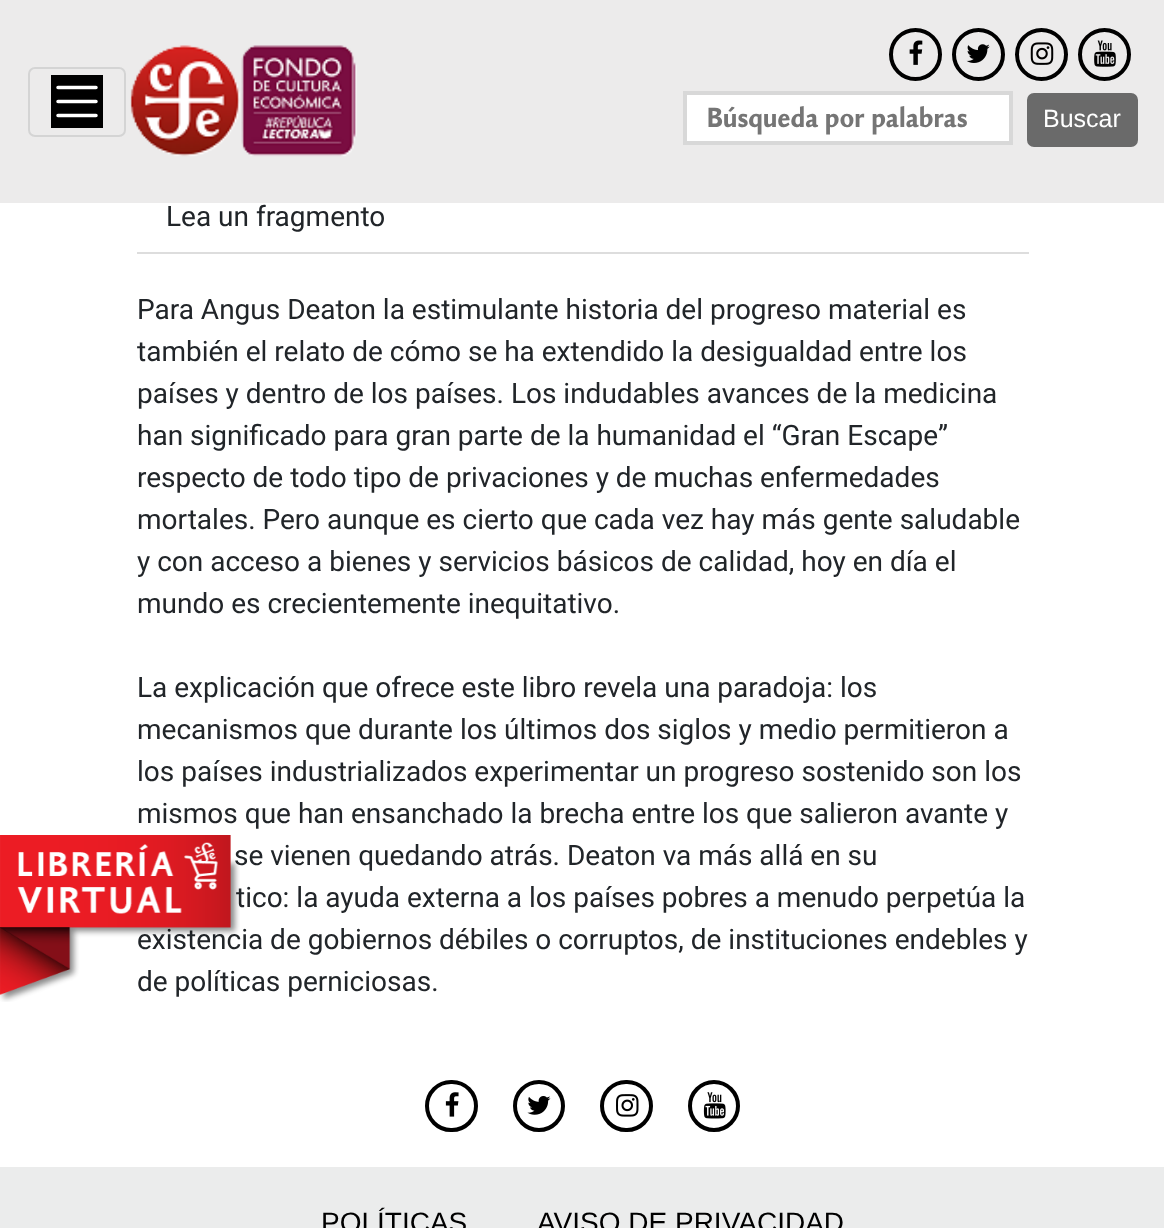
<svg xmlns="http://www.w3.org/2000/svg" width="1164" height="1228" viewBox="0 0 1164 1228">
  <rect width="100%" height="100%" fill="#fff"/>
  <path d="M0 0h1164v203H0z" fill="#ecebeb"/>
  <rect x="29" y="68" width="96" height="68" rx="6" fill="none" stroke="#d4d4d4" stroke-width="2"/>
  <path d="M51 75h52v53H51z" fill="#000"/>
  <path d="M58 87.5H96M58 101.5H96M58 115.5H96" fill="none" stroke="#fff" stroke-width="3.5" stroke-linecap="round"/>
  <image x="130" y="45" width="227" height="112" href="img/1.png"/>
  <circle cx="915.5" cy="54.5" r="24.5" fill="none" stroke="#000" stroke-width="4"/>
  <image x="909" y="40" width="14" height="25" href="img/2.png"/>
  <circle cx="978.5" cy="54.5" r="24.5" fill="none" stroke="#000" stroke-width="4"/>
  <image x="966" y="44" width="24" height="19" href="img/3.png"/>
  <circle cx="1041.5" cy="54.5" r="24.5" fill="none" stroke="#000" stroke-width="4"/>
  <image x="1030" y="42" width="24" height="23" href="img/4.png"/>
  <circle cx="1104.5" cy="54.5" r="24.5" fill="none" stroke="#000" stroke-width="4"/>
  <image x="1094" y="40" width="22" height="27" href="img/5.png"/>
  <path d="M685 93h326v50H685z" fill="#fff" stroke="#d8d8d8" stroke-width="4"/>
  <rect x="1028" y="94" width="109" height="52" rx="6" fill="#6a6a6a" stroke="#6a6a6a" stroke-width="2"/>
  <path d="M137 252h892v2H137z" fill="#ddd"/>
  <rect x="427" y="1082" width="49" height="48" rx="24" fill="none" stroke="#000" stroke-width="4"/>
  <image x="445" y="1092" width="14" height="25" href="img/7.png"/>
  <circle cx="539" cy="1106" r="24" fill="none" stroke="#000" stroke-width="4"/>
  <image x="527" y="1096" width="24" height="19" href="img/8.png"/>
  <rect x="602" y="1082" width="49" height="48" rx="24" fill="none" stroke="#000" stroke-width="4"/>
  <image x="616" y="1094" width="23" height="23" href="img/9.png"/>
  <circle cx="714" cy="1106" r="24" fill="none" stroke="#000" stroke-width="4"/>
  <image x="703" y="1092" width="23" height="27" href="img/10.png"/>
  <path d="M0 1167h1164v61H0z" fill="#ebecec"/>
  <text x="707" y="127" font-family="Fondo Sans" font-size="29.5" font-weight="bold" fill="#757575">Búsqueda por palabras</text>
  <text x="1043" y="127" font-family="Liberation Sans" font-size="25" fill="#fff">Buscar</text>
  <g font-family="Roboto" font-size="28" fill="#212529">
    <text x="166" y="226">Lea un fragmento</text>
    <text x="137" y="319">Para Angus Deaton la estimulante historia del progreso material es</text>
    <text x="137" y="361">también el relato de cómo se ha extendido la desigualdad entre los</text>
    <text x="137" y="403">países y dentro de los países. Los indudables avances de la medicina</text>
    <text x="137" y="445">han significado para gran parte de la humanidad el “Gran Escape”</text>
    <text x="137" y="487">respecto de todo tipo de privaciones y de muchas enfermedades</text>
    <text x="137" y="529">mortales. Pero aunque es cierto que cada vez hay más gente saludable</text>
    <text x="137" y="571">y con acceso a bienes y servicios básicos de calidad, hoy en día el</text>
    <text x="137" y="613">mundo es crecientemente inequitativo.</text>
    <text x="137" y="697">La explicación que ofrece este libro revela una paradoja: los</text>
    <text x="137" y="739">mecanismos que durante los últimos dos siglos y medio permitieron a</text>
    <text x="137" y="781">los países industrializados experimentar un progreso sostenido son los</text>
    <text x="137" y="823">mismos que han ensanchado la brecha entre los que salieron avante y</text>
    <text x="234" y="865">se vienen quedando atrás. Deaton va más allá en su</text>
    <text x="236" y="907">tico: la ayuda externa a los países pobres a menudo perpetúa la</text>
    <text x="137" y="949">existencia de gobiernos débiles o corruptos, de instituciones endebles y</text>
    <text x="137" y="991">de políticas perniciosas.</text>
  </g>
  <image x="0" y="835" width="240" height="167" href="img/6.png"/>
  <g font-family="Liberation Sans" font-size="28" fill="#000">
    <text x="321" y="1232">POLÍTICAS</text>
    <text x="537" y="1232">AVISO DE PRIVACIDAD</text>
  </g>
</svg>
